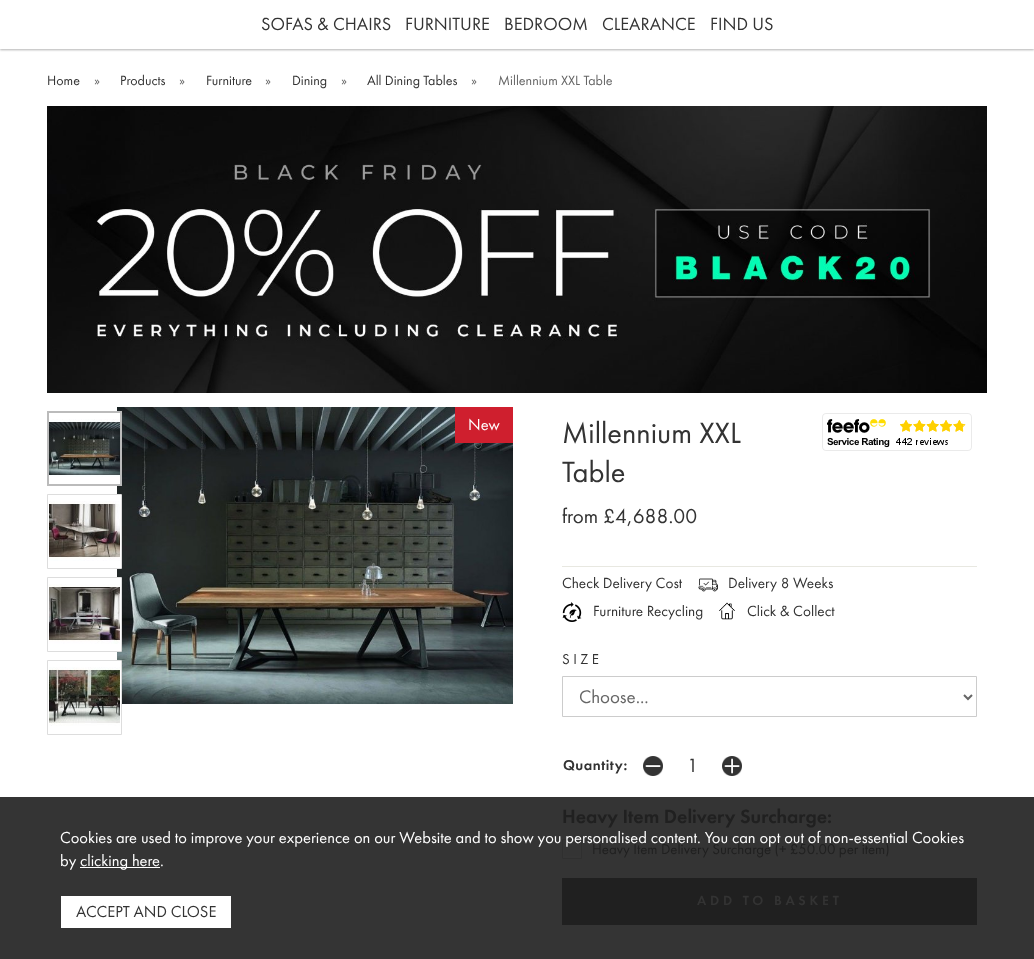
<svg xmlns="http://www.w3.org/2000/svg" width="1034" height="959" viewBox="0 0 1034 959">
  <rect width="100%" height="100%" fill="#fff"/>
  <path d="M0 797h1034v162H0z" fill="#343434"/>
  <path d="M0 1h1034v49H0z" fill="#0000004d" filter="blur(1px)"/>
  <path d="M0 0h1034v49H0z" fill="#fff"/>
  <image x="47" y="106" width="940" height="287" href="img/1.png"/>
  <image x="117" y="407" width="396" height="297" href="img/6.png"/>
  <path d="M117 413h3v71H117z" fill="#fff"/>
  <path d="M48 412h73v73H48z" fill="none" stroke="#bbb" stroke-width="2"/>
  <image x="49" y="419" width="71" height="58" href="img/2.png"/>
  <path d="M117 495h4v73H117z" fill="#fff"/>
  <path d="M47.5 494.5h74v74H47.5z" fill="none" stroke="#ddd"/>
  <image x="49" y="501" width="71" height="60" href="img/3.png"/>
  <path d="M117 578h4v73H117z" fill="#fff"/>
  <path d="M47.5 577.5h74v74H47.5z" fill="none" stroke="#ddd"/>
  <image x="49" y="584" width="71" height="60" href="img/4.png"/>
  <path d="M117 661h4v43H117z" fill="#fff"/>
  <path d="M47.5 660.5h74v74H47.5z" fill="none" stroke="#ddd"/>
  <image x="49" y="667" width="71" height="59" href="img/5.png"/>
  <path d="M455 407h58v36H455z" fill="#cf1f2e"/>
  <image x="822" y="413" width="150" height="38" href="img/7.png"/>
  <path d="M562 566h415v1H562z" fill="#e8e8e1"/>
  <image x="698" y="578" width="20" height="14" href="img/8.png"/>
  <image x="562" y="602" width="20" height="20" href="img/9.png"/>
  <image x="719" y="602" width="16" height="18" href="img/10.png"/>
  <path d="M562.5 676.5h414v40H562.5z" fill="none" stroke="#ccc"/>
  <path d="M964 695L968 699L972 695" fill="none" stroke="#666" stroke-width="2"/>
  <image x="643" y="756" width="20" height="20" href="img/11.png"/>
  <image x="722" y="756" width="20" height="20" href="img/12.png"/>
  <image x="562" y="839" width="20" height="20" href="img/13.png"/>
  <path d="M562 878h415v47H562z" fill="#202020"/>
  <path d="M80 867h80v1H80z" fill="#fff"/>
  <path d="M61 896h170v32H61z" fill="#fff"/>
  <g font-family="Futura PT" font-size="18.25" fill="#333">
    <text x="261" y="30">SOFAS &amp; CHAIRS</text>
    <text x="405" y="30">FURNITURE</text>
    <text x="504" y="30">BEDROOM</text>
    <text x="602" y="30">CLEARANCE</text>
    <text x="710" y="30">FIND US</text>
  </g>
  <text x="47" y="85" font-family="Futura PT" font-size="14" fill="#333">Home</text>
  <text x="94" y="85" font-family="Futura PT" font-size="14" fill="#666">»</text>
  <text x="120" y="85" font-family="Futura PT" font-size="14" fill="#333">Products</text>
  <text x="179" y="85" font-family="Futura PT" font-size="14" fill="#666">»</text>
  <text x="206" y="85" font-family="Futura PT" font-size="14" fill="#333">Furniture</text>
  <text x="265" y="85" font-family="Futura PT" font-size="14" fill="#666">»</text>
  <text x="292" y="85" font-family="Futura PT" font-size="14" fill="#333">Dining</text>
  <text x="341" y="85" font-family="Futura PT" font-size="14" fill="#666">»</text>
  <text x="367" y="85" font-family="Futura PT" font-size="14" fill="#333">All Dining Tables</text>
  <g font-family="Futura PT" font-size="14" fill="#666">
    <text x="471" y="85">»</text>
    <text x="498" y="85">Millennium XXL Table</text>
  </g>
  <text x="468" y="430" font-family="Futura PT" font-size="16.5" fill="#fff">New</text>
  <g font-family="Futura PT" font-size="30.5" fill="#333">
    <text x="562" y="443">Millennium XXL</text>
    <text x="562" y="482">Table</text>
  </g>
  <text x="562" y="523" font-family="Futura PT" font-size="21" fill="#333">from £4,688.00</text>
  <g font-family="Futura PT" font-size="15.25" fill="#333">
    <text x="562" y="588">Check Delivery Cost</text>
    <text x="728" y="588">Delivery 8 Weeks</text>
    <text x="593" y="616">Furniture Recycling</text>
    <text x="747" y="616">Click &amp; Collect</text>
  </g>
  <text x="562" y="664" font-family="Futura PT" font-size="14.85" letter-spacing="3.5" fill="#333">SIZE</text>
  <text x="579" y="703" font-family="Futura PT" font-size="19" fill="#666">Choose...</text>
  <text x="563" y="770" font-family="Futura PT" font-size="14.85" font-weight="500" letter-spacing="0.5" fill="#333">Quantity:</text>
  <text x="687" y="772" font-family="Futura PT" font-size="19.75" fill="#333">1</text>
  <text x="562" y="823" font-family="Futura PT" font-size="19.75" font-weight="500" fill="#202020">Heavy Item Delivery Surcharge:</text>
  <text x="592" y="854" font-family="Futura PT" font-size="14.85" fill="#202020">Heavy Item Delivery Surcharge (+ £50.00 per item)</text>
  <text x="697" y="905" font-family="Futura PT" font-size="13.75" font-weight="500" letter-spacing="3.75" fill="#333">ADD TO BASKET</text>
  <g font-family="Futura PT" font-size="16.5" fill="#fff">
    <text x="60" y="843">Cookies are used to improve your experience on our Website and to show you personalised content. You can opt out of non-essential Cookies</text>
    <text x="60" y="866">by</text>
    <text x="80" y="866">clicking here.</text>
  </g>
  <text x="76" y="917" font-family="Futura PT" font-size="16.5" fill="#333">ACCEPT AND CLOSE</text>
</svg>
